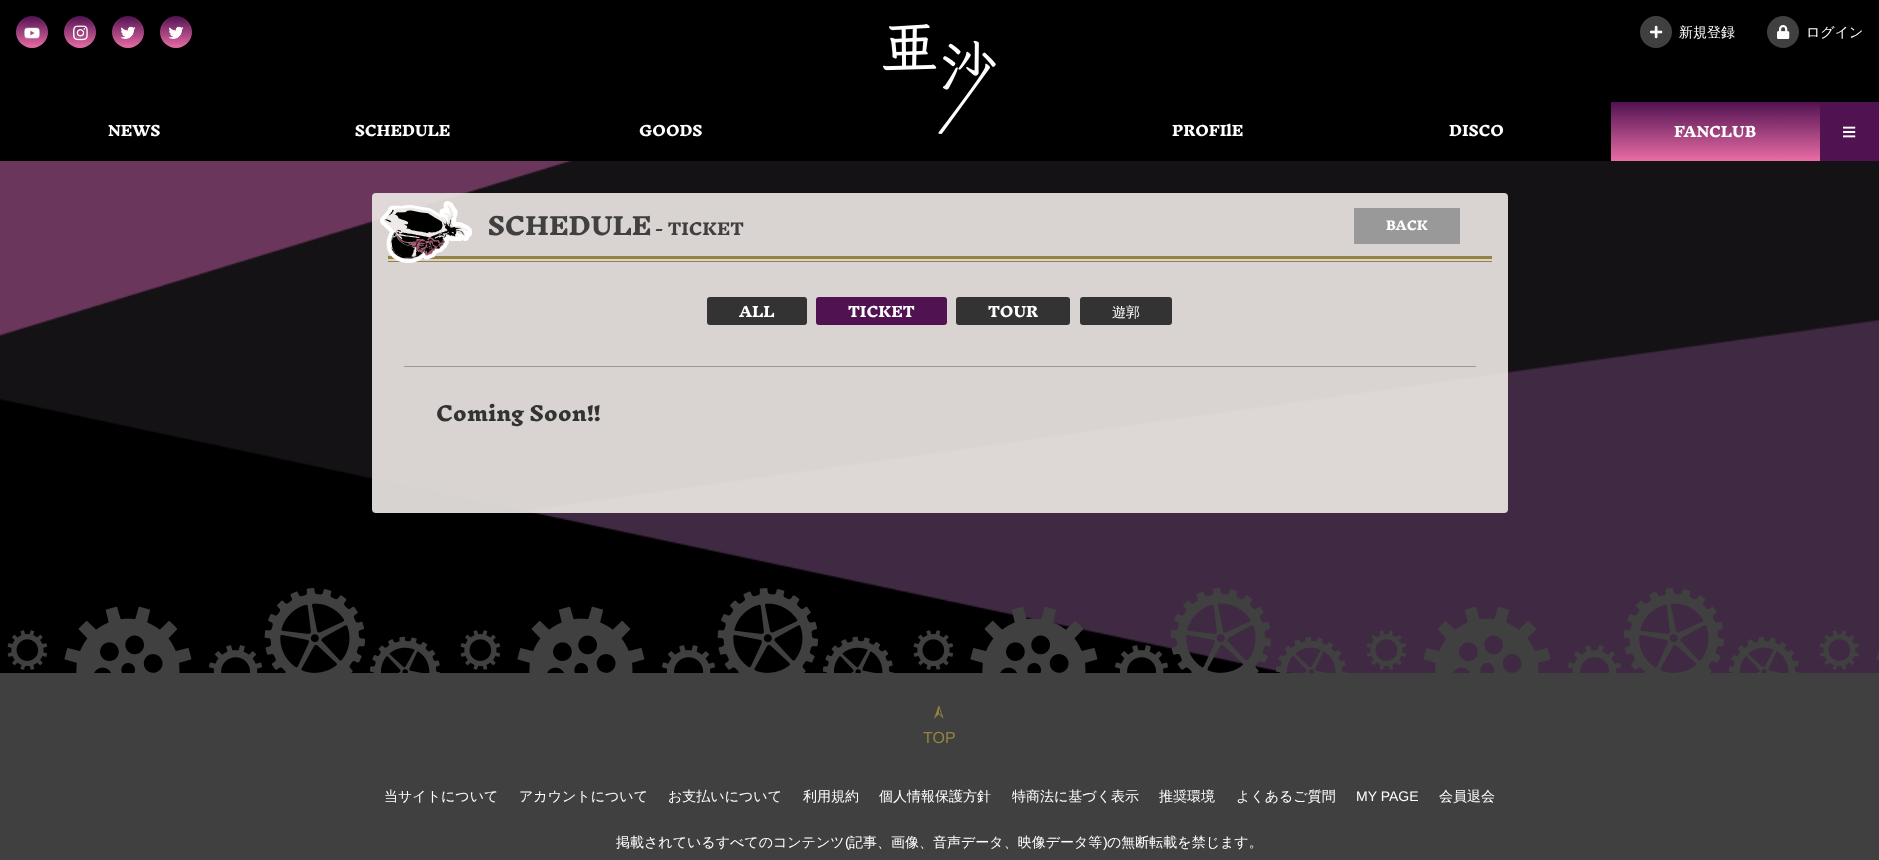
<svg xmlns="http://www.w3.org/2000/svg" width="1879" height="860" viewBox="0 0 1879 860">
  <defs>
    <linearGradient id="g1" gradientUnits="userSpaceOnUse" x1="32" y1="16" x2="32" y2="48"><stop offset="0" stop-color="#511252"/><stop offset="1" stop-color="#e86da5"/></linearGradient>
    <linearGradient id="g2" gradientUnits="userSpaceOnUse" x1="80" y1="16" x2="80" y2="48"><stop offset="0" stop-color="#511252"/><stop offset="1" stop-color="#e86da5"/></linearGradient>
    <linearGradient id="g3" gradientUnits="userSpaceOnUse" x1="128" y1="16" x2="128" y2="48"><stop offset="0" stop-color="#511252"/><stop offset="1" stop-color="#e86da5"/></linearGradient>
    <linearGradient id="g4" gradientUnits="userSpaceOnUse" x1="176" y1="16" x2="176" y2="48"><stop offset="0" stop-color="#511252"/><stop offset="1" stop-color="#e86da5"/></linearGradient>
    <linearGradient id="g5" gradientUnits="userSpaceOnUse" x1="1745" y1="102" x2="1745" y2="161"><stop offset="0" stop-color="#511252"/><stop offset="1" stop-color="#e86da5"/></linearGradient>
  </defs>
  <rect width="100%" height="100%" fill="#fff"/>
  <path d="M0 0h1879v161H0z" fill="#000"/>
  <circle cx="32" cy="32" r="16" fill="url(#g1)"/>
  <image x="24" y="27" width="16" height="12" href="img/1.png"/>
  <circle cx="80" cy="32" r="16" fill="url(#g2)"/>
  <image x="73" y="25" width="15" height="16" href="img/2.png"/>
  <circle cx="128" cy="32" r="16" fill="url(#g3)"/>
  <image x="120" y="26" width="16" height="13" href="img/3.png"/>
  <circle cx="176" cy="32" r="16" fill="url(#g4)"/>
  <image x="168" y="26" width="16" height="13" href="img/3.png"/>
  <image x="883" y="24" width="113" height="110" href="img/4.png"/>
  <circle cx="1656" cy="32" r="16" fill="#404040"/>
  <image x="1650" y="25" width="13" height="14" href="img/5.png"/>
  <circle cx="1783" cy="32" r="16" fill="#404040"/>
  <image x="1777" y="25" width="13" height="14" href="img/6.png"/>
  <path d="M1611 102h209v59H1611z" fill="url(#g5)"/>
  <path d="M1820 102h59v59H1820z" fill="#511252"/>
  <image x="1843" y="126" width="13" height="12" href="img/7.png"/>
  <image x="0" y="161" width="1879" height="512" href="img/8.png"/>
  <rect x="372" y="193" width="1136" height="320" rx="4" fill="#eeeae7e6"/>
  <path d="M388 256h1104v3H388z" fill="#948242"/>
  <path d="M388 261h1104v1H388z" fill="#948242"/>
  <image x="380" y="201" width="92" height="62" href="img/9.png"/>
  <path d="M1354 208h106v36H1354z" fill="#999"/>
  <path d="M404 366h1072v1H404z" fill="#999"/>
  <rect x="707" y="297" width="100" height="28" rx="3" fill="#333"/>
  <rect x="816" y="297" width="131" height="28" rx="3" fill="#511252"/>
  <rect x="956" y="297" width="114" height="28" rx="3" fill="#333"/>
  <rect x="1080" y="297" width="92" height="28" rx="3" fill="#333"/>
  <path d="M0 673h1879v187H0z" fill="#404040"/>
  <image x="7" y="588" width="1872" height="85" href="img/10.png"/>
  <image x="934" y="705" width="10" height="14" href="img/11.png"/>
  <g font-family="WenQuanYi Zen Hei" font-size="14" font-weight="500" fill="#fff">
    <text x="1679" y="37">新規登録</text>
    <text x="1806" y="37">ログイン</text>
  </g>
  <g font-family="Inknut Antiqua" font-size="14" font-weight="800" fill="#fff">
    <text x="108" y="136">NEWS</text>
    <text x="355" y="136">SCHEDULE</text>
    <text x="639" y="136">GOODS</text>
    <text x="1172" y="136">PROFIlE</text>
    <text x="1449" y="136">DISCO</text>
    <text x="1674" y="137">FANCLUB</text>
  </g>
  <text x="488" y="235" font-family="Inknut Antiqua" font-size="24" font-weight="800" fill="#404040">SCHEDULE</text>
  <text x="655" y="235" font-family="Inknut Antiqua" font-size="16" font-weight="800" fill="#404040">- TICKET</text>
  <text x="1386" y="230" font-family="Inknut Antiqua" font-size="12" font-weight="800" fill="#fff">BACK</text>
  <g font-family="Inknut Antiqua" font-size="14" font-weight="800" fill="#fff">
    <text x="739" y="317">ALL</text>
    <text x="848" y="317">TICKET</text>
    <text x="988" y="317">TOUR</text>
  </g>
  <text x="1112" y="317" font-family="WenQuanYi Zen Hei" font-size="14" font-weight="500" fill="#fff">遊郭</text>
  <text x="436" y="421" font-family="Inknut Antiqua" font-size="20" font-weight="800" fill="#333">Coming Soon!!</text>
  <text x="923" y="743" font-family="Liberation Sans" font-size="16" fill="#948242">TOP</text>
  <g font-family="WenQuanYi Zen Hei" font-size="14" font-weight="500" fill="#fff">
    <text x="384" y="801">当サイトについて</text>
    <text x="519" y="801">アカウントについて</text>
    <text x="668" y="801">お支払いについて</text>
    <text x="803" y="801">利用規約</text>
    <text x="879" y="801">個人情報保護方針</text>
    <text x="1012" y="801">特商法に基づく表示</text>
    <text x="1159" y="801">推奨環境</text>
    <text x="1236" y="801">よくあるご質問</text>
  </g>
  <text x="1356" y="801" font-family="Liberation Sans" font-size="14" fill="#fff">MY PAGE</text>
  <g font-family="WenQuanYi Zen Hei" font-size="14" font-weight="500" fill="#fff">
    <text x="1439" y="801">会員退会</text>
    <text x="616" y="847">掲載されているすべてのコンテンツ</text>
  </g>
  <text x="845" y="847" font-family="Liberation Sans" font-size="14" fill="#fff">(</text>
  <text x="849" y="847" font-family="WenQuanYi Zen Hei" font-size="14" font-weight="500" fill="#fff">記事、画像、音声データ、映像データ等</text>
  <text x="1103" y="847" font-family="Liberation Sans" font-size="14" fill="#fff">)</text>
  <text x="1107" y="847" font-family="WenQuanYi Zen Hei" font-size="14" font-weight="500" fill="#fff">の無断転載を禁じます。</text>
</svg>
